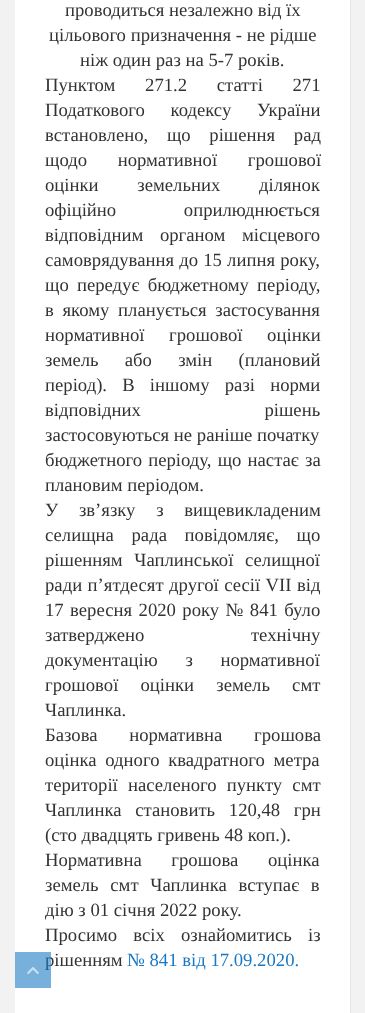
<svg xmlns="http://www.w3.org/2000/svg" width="365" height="1013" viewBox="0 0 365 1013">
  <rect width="100%" height="100%" fill="#f2f2f2"/>
  <path d="M16 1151V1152H351V-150H350V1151Z" fill="#e6e6e6"/>
  <path d="M15 0h335v1013H15z" fill="#fff"/>
  <g font-family="Liberation Serif" font-size="18.7" fill="#333">
    <text x="65" y="16">проводиться незалежно від їх</text>
    <text x="49" y="41">цільового призначення - не рідше</text>
    <text x="80" y="66">ніж один раз на 5-7 років.</text>
    <text x="45" y="91" word-spacing="25">Пунктом 271.2 статті 271</text>
    <text x="45" y="116" word-spacing="21">Податкового кодексу України</text>
    <text x="45" y="141" word-spacing="14">встановлено, що рішення рад</text>
    <text x="45" y="166" word-spacing="26">щодо нормативної грошової</text>
    <text x="45" y="191" word-spacing="34">оцінки земельних ділянок</text>
    <text x="45" y="216" word-spacing="63">офіційно оприлюднюється</text>
    <text x="45" y="241" word-spacing="12">відповідним органом місцевого</text>
    <text x="45" y="266" word-spacing="0.5">самоврядування до 15 липня року,</text>
    <text x="45" y="291" word-spacing="3.5">що передує бюджетному періоду,</text>
    <text x="45" y="316" word-spacing="4">в якому планується застосування</text>
    <text x="45" y="341" word-spacing="20">нормативної грошової оцінки</text>
    <text x="45" y="366" word-spacing="21.5">земель або змін (плановий</text>
    <text x="45" y="391" word-spacing="10.5">період). В іншому разі норми</text>
    <text x="45" y="416" word-spacing="119">відповідних рішень</text>
    <text x="45" y="441">застосовуються не раніше початку</text>
    <text x="45" y="466" word-spacing="1.5">бюджетного періоду, що настає за</text>
    <text x="45" y="491">плановим періодом.</text>
    <text x="45" y="516" word-spacing="16">У зв’язку з вищевикладеним</text>
    <text x="45" y="541" word-spacing="13">селищна рада повідомляє, що</text>
    <text x="45" y="566" word-spacing="7">рішенням Чаплинської селищної</text>
    <text x="45" y="591" word-spacing="0.75">ради п’ятдесят другої сесії VII від</text>
    <text x="45" y="616" word-spacing="1.75">17 вересня 2020 року № 841 було</text>
    <text x="45" y="641" word-spacing="102">затверджено технічну</text>
    <text x="45" y="666" word-spacing="23">документацію з нормативної</text>
    <text x="45" y="691" word-spacing="17.5">грошової оцінки земель смт</text>
    <text x="45" y="716">Чаплинка.</text>
    <text x="45" y="741" word-spacing="27">Базова нормативна грошова</text>
    <text x="45" y="766" word-spacing="4">оцінка одного квадратного метра</text>
    <text x="45" y="791" word-spacing="5.5">території населеного пункту смт</text>
    <text x="45" y="816" word-spacing="9">Чаплинка становить 120,48 грн</text>
    <text x="45" y="841">(сто двадцять гривень 48 коп.).</text>
    <text x="45" y="866" word-spacing="25">Нормативна грошова оцінка</text>
    <text x="45" y="891" word-spacing="7">земель смт Чаплинка вступає в</text>
    <text x="45" y="916">дію з 01 січня 2022 року.</text>
    <text x="45" y="941" word-spacing="11.5">Просимо всіх ознайомитись із</text>
    <text x="45" y="966">рішенням</text>
  </g>
  <path d="M15 952h36v36H15z" fill="#1978c496"/>
  <image x="27" y="967" width="12" height="7" href="img/1.png"/>
  <text x="127" y="966" font-family="Liberation Serif" font-size="18.7" fill="#1978c4">№ 841 від 17.09.2020.</text>
</svg>
